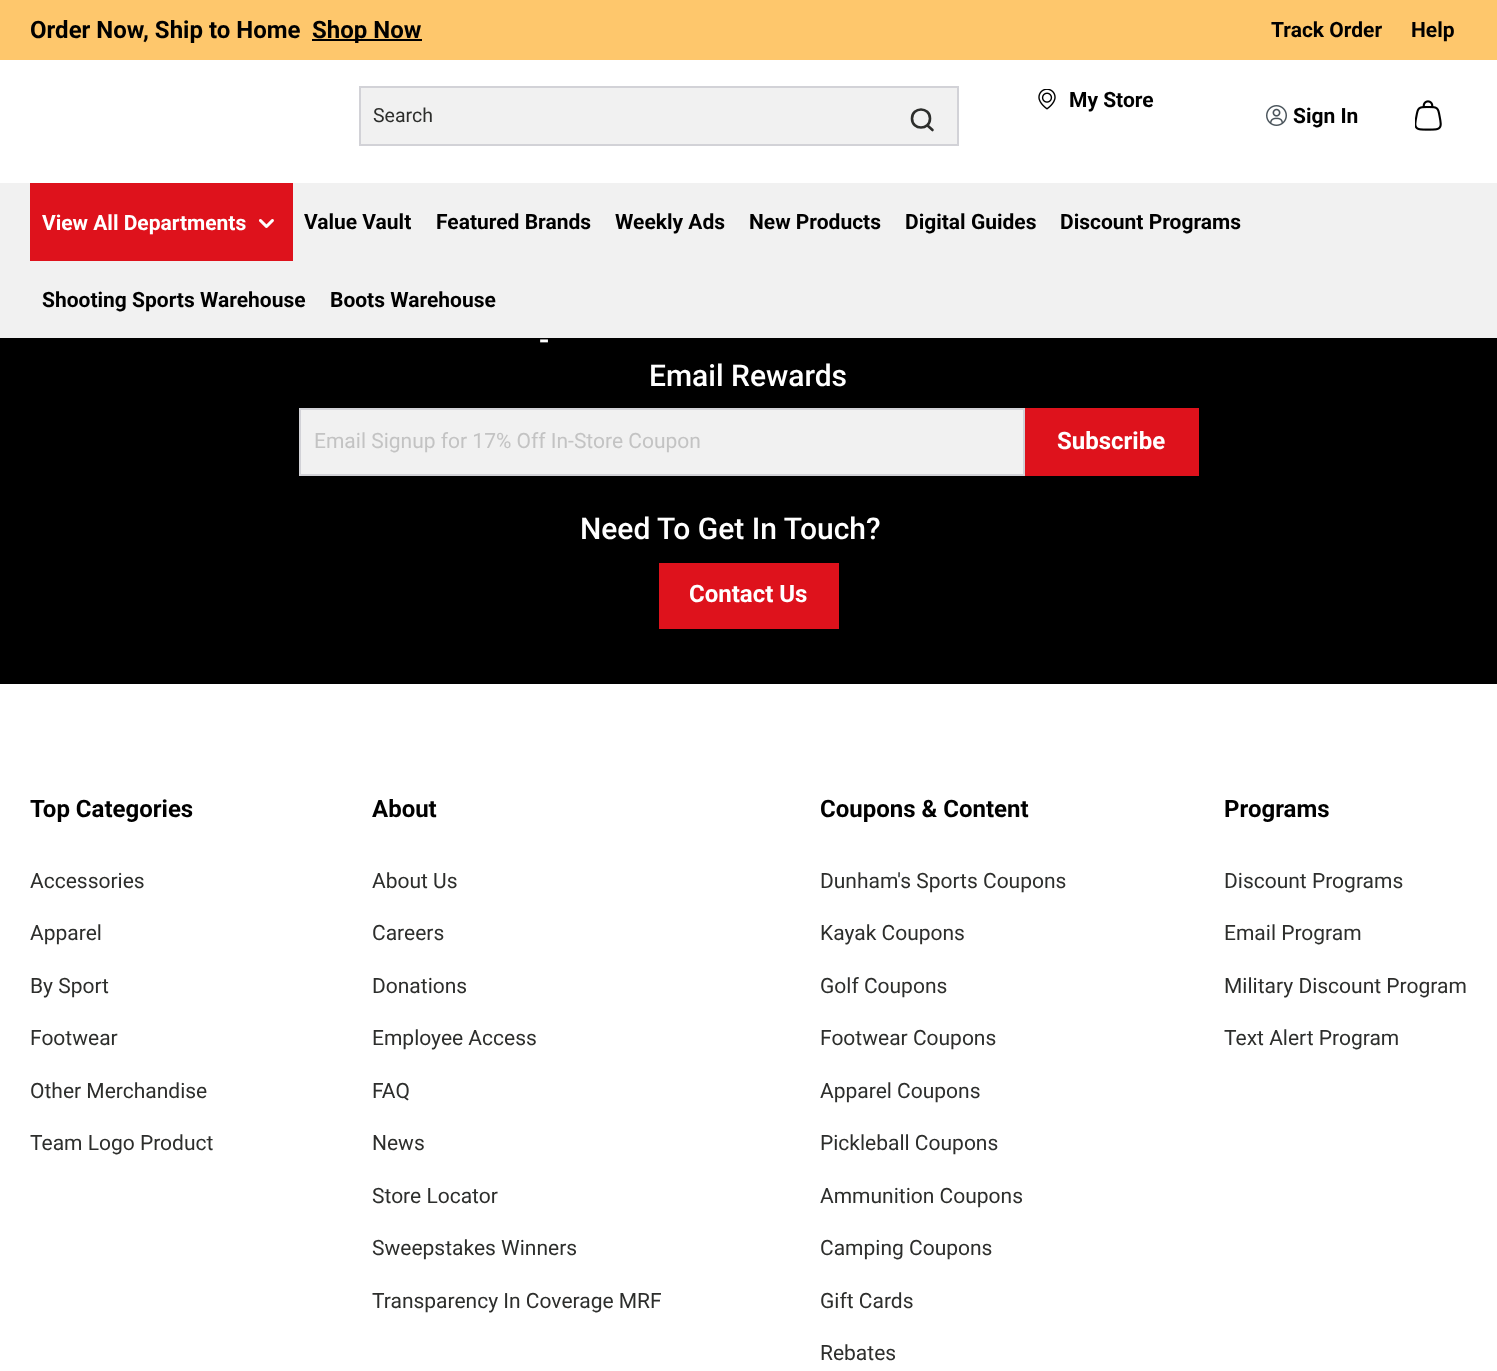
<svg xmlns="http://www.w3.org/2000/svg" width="1497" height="1371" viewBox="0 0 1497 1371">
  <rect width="100%" height="100%" fill="#fff"/>
  <path d="M0 0h1497v60H0z" fill="#fec76c"/>
  <path d="M312 39h110v2H312z" fill="#000"/>
  <path d="M360 87h598v58H360z" fill="#f1f1f1" stroke="#d2d2d7" stroke-width="2"/>
  <path d="M930 118.5C930 130.5 912 130.5 912 118.5C912 106.5 930 106.5 930 118.5ZM932.5 130L927.5 125.5" fill="none" stroke="#2d2e2c" stroke-width="2.6" stroke-linecap="round" stroke-linejoin="round"/>
  <image x="1038" y="89" width="18" height="21" href="img/1.png"/>
  <image x="1266" y="105" width="21" height="21" href="img/2.png"/>
  <image x="1415" y="100" width="27" height="31" href="img/3.png"/>
  <path d="M0 183h1497v155H0z" fill="#f1f1f1"/>
  <path d="M30 183h263v78H30z" fill="#de121c"/>
  <image x="259" y="219" width="15" height="9" href="img/4.png"/>
  <path d="M0 338h1497v346H0z" fill="#000"/>
  <path d="M300 409h724v66H300z" fill="#f1f1f1" stroke="#d2d2d7" stroke-width="2"/>
  <path d="M1025 408h174v68H1025z" fill="#de121c"/>
  <path d="M659 563h180v66H659z" fill="#de121c"/>
  <g font-family="Roboto" font-size="24" font-weight="bold" fill="#000">
    <text x="30" y="38">Order Now, Ship to Home</text>
    <text x="312" y="38">Shop Now</text>
  </g>
  <g font-family="Roboto" font-size="21" font-weight="bold" fill="#000">
    <text x="1271" y="37">Track Order</text>
    <text x="1411" y="37">Help</text>
  </g>
  <text x="373" y="122" font-family="Roboto" font-size="19.5" fill="#2d2e2c">Search</text>
  <g font-family="Roboto" font-size="21" font-weight="bold" fill="#000">
    <text x="1069" y="107">My Store</text>
    <text x="1293" y="123">Sign In</text>
  </g>
  <text x="42" y="230" font-family="Roboto" font-size="21" font-weight="bold" fill="#fff">View All Departments</text>
  <g font-family="Roboto" font-size="21" font-weight="bold" fill="#000">
    <text x="304" y="229">Value Vault</text>
    <text x="436" y="229">Featured Brands</text>
    <text x="615" y="229">Weekly Ads</text>
    <text x="749" y="229">New Products</text>
    <text x="905" y="229">Digital Guides</text>
    <text x="1060" y="229">Discount Programs</text>
    <text x="42" y="307">Shooting Sports Warehouse</text>
    <text x="330" y="307">Boots Warehouse</text>
  </g>
  <g font-family="Roboto" font-size="30" font-weight="500" fill="#fff">
    <text x="539" y="350">-</text>
    <text x="649" y="386">Email Rewards</text>
  </g>
  <text x="314" y="448" font-family="Roboto" font-size="21" fill="#c3c3c3">Email Signup for 17% Off In-Store Coupon</text>
  <text x="1057" y="449" font-family="Roboto" font-size="24" font-weight="bold" fill="#fff">Subscribe</text>
  <text x="580" y="539" font-family="Roboto" font-size="30" font-weight="500" fill="#fff">Need To Get In Touch?</text>
  <text x="689" y="602" font-family="Roboto" font-size="24" font-weight="bold" fill="#fff">Contact Us</text>
  <text x="30" y="817" font-family="Roboto" font-size="24" font-weight="bold" fill="#000">Top Categories</text>
  <g font-family="Roboto" font-size="21" fill="#2d2e2c">
    <text x="30" y="888">Accessories</text>
    <text x="30" y="940">Apparel</text>
    <text x="30" y="993">By Sport</text>
    <text x="30" y="1045">Footwear</text>
    <text x="30" y="1098">Other Merchandise</text>
    <text x="30" y="1150">Team Logo Product</text>
  </g>
  <text x="372" y="817" font-family="Roboto" font-size="24" font-weight="bold" fill="#000">About</text>
  <g font-family="Roboto" font-size="21" fill="#2d2e2c">
    <text x="372" y="888">About Us</text>
    <text x="372" y="940">Careers</text>
    <text x="372" y="993">Donations</text>
    <text x="372" y="1045">Employee Access</text>
    <text x="372" y="1098">FAQ</text>
    <text x="372" y="1150">News</text>
    <text x="372" y="1203">Store Locator</text>
    <text x="372" y="1255">Sweepstakes Winners</text>
    <text x="372" y="1308">Transparency In Coverage MRF</text>
  </g>
  <text x="820" y="817" font-family="Roboto" font-size="24" font-weight="bold" fill="#000">Coupons &amp; Content</text>
  <g font-family="Roboto" font-size="21" fill="#2d2e2c">
    <text x="820" y="888">Dunham's Sports Coupons</text>
    <text x="820" y="940">Kayak Coupons</text>
    <text x="820" y="993">Golf Coupons</text>
    <text x="820" y="1045">Footwear Coupons</text>
    <text x="820" y="1098">Apparel Coupons</text>
    <text x="820" y="1150">Pickleball Coupons</text>
    <text x="820" y="1203">Ammunition Coupons</text>
    <text x="820" y="1255">Camping Coupons</text>
    <text x="820" y="1308">Gift Cards</text>
    <text x="820" y="1360">Rebates</text>
  </g>
  <text x="1224" y="817" font-family="Roboto" font-size="24" font-weight="bold" fill="#000">Programs</text>
  <g font-family="Roboto" font-size="21" fill="#2d2e2c">
    <text x="1224" y="888">Discount Programs</text>
    <text x="1224" y="940">Email Program</text>
    <text x="1224" y="993">Military Discount Program</text>
    <text x="1224" y="1045">Text Alert Program</text>
  </g>
</svg>
